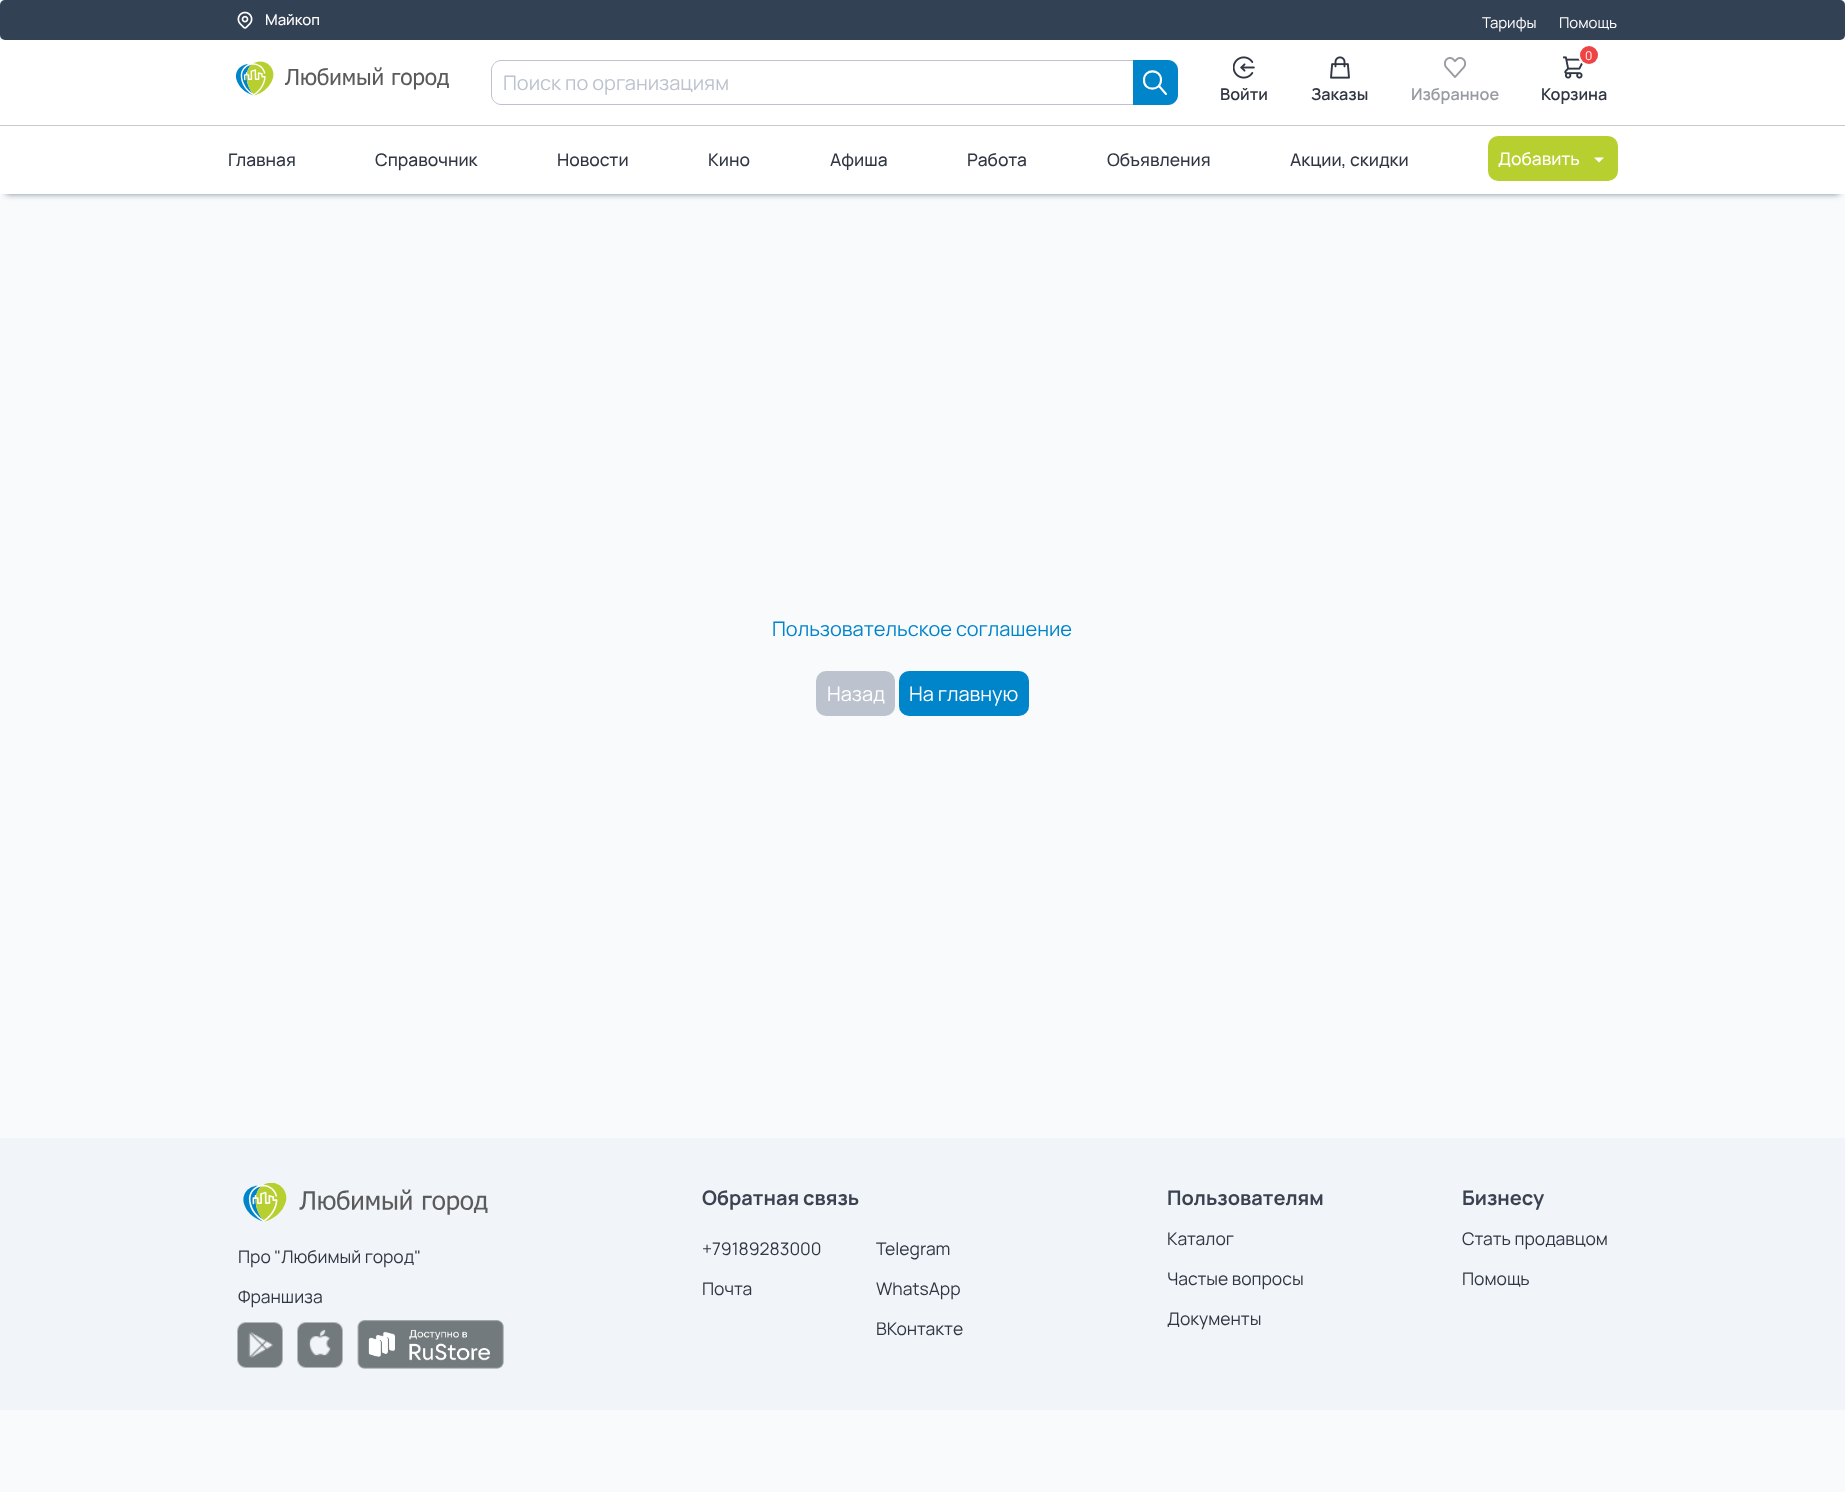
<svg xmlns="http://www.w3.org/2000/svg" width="1845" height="1492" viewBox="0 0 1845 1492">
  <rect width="100%" height="100%" fill="#f8fafc"/>
  <rect x="-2" y="1" width="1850" height="45" rx="8" fill="#223c500d" filter="blur(6px)"/>
  <rect width="1845" height="40" rx="5" fill="#334155"/>
  <image x="237" y="11" width="16" height="18" href="img/1.png"/>
  <path d="M0 40h1845v85H0z" fill="#fff"/>
  <path d="M0 125h1845v1H0z" fill="#c5cad0"/>
  <image x="235" y="61" width="214" height="35" href="img/2.png"/>
  <path d="M501 60.5H1133.5V104.5H501C496 104.5 491.5 100 491.5 95V70C491.5 65 496 60.5 501 60.5Z" fill="none" stroke="#bcc3ce"/>
  <path d="M1133 60H1168C1173.5 60 1178 64.5 1178 70V95C1178 100.5 1173.5 105 1168 105H1133Z" fill="#0084ca"/>
  <path d="M1166 94L1159 86M1161 80C1161 91.5 1143.5 91.5 1144 80C1144 68.5 1161 68.5 1161 80Z" fill="none" stroke="#fff" stroke-width="2.1" stroke-linecap="round" stroke-linejoin="round"/>
  <image x="1233" y="56" width="22" height="23" href="img/3.png"/>
  <image x="1330" y="56" width="20" height="23" href="img/4.png"/>
  <image x="1444" y="57" width="22" height="21" href="img/5.png"/>
  <image x="1563" y="56" width="21" height="23" href="img/6.png"/>
  <circle cx="1589" cy="55" r="9.5" fill="none" stroke="#fff" stroke-width="3"/>
  <circle cx="1589" cy="55" r="9" fill="#ef4444"/>
  <path d="M6 139h1833v55H6z" fill="#223c5099" filter="blur(3px)"/>
  <path d="M0 126h1845v68H0z" fill="#fff"/>
  <rect x="1488" y="136" width="130" height="45" rx="10" fill="#b8d02f"/>
  <path d="M1594 157.5H1604L1599 162.5Z" fill="#fff"/>
  <rect x="816" y="671" width="79" height="45" rx="10" fill="#bcc3ce"/>
  <rect x="899" y="671" width="130" height="45" rx="10" fill="#0084ca"/>
  <path d="M0 1138h1845v272H0z" fill="#f1f5f9"/>
  <image x="243" y="1183" width="245" height="39" href="img/7.png"/>
  <image x="237" y="1322" width="46" height="46" href="img/8.png"/>
  <image x="297" y="1322" width="46" height="46" href="img/9.png"/>
  <image x="357" y="1320" width="147" height="49" href="img/10.png"/>
  <text x="265" y="25" font-family="Manrope" font-size="15" font-weight="500" fill="#fff">Майкоп</text>
  <g font-family="Manrope" font-size="15" fill="#fff">
    <text x="1482" y="28">Тарифы</text>
    <text x="1559" y="28">Помощь</text>
  </g>
  <text x="503" y="90" font-family="Manrope" font-size="20" fill="#bcc3ce">Поиск по организациям</text>
  <g font-family="Manrope" font-size="16.25" font-weight="600" fill="#303742">
    <text x="1220" y="100">Войти</text>
    <text x="1311" y="100">Заказы</text>
  </g>
  <text x="1411" y="100" font-family="Manrope" font-size="16.25" font-weight="600" fill="#989ba1">Избранное</text>
  <text x="1585" y="60" font-family="Manrope" font-size="12" fill="#fff">0</text>
  <text x="1541" y="100" font-family="Manrope" font-size="16.25" font-weight="600" fill="#303742">Корзина</text>
  <g font-family="Manrope" font-size="17.5" font-weight="500" fill="#303742">
    <text x="228" y="166">Главная</text>
    <text x="375" y="166">Справочник</text>
    <text x="557" y="166">Новости</text>
    <text x="708" y="166">Кино</text>
    <text x="830" y="166">Афиша</text>
    <text x="967" y="166">Работа</text>
    <text x="1107" y="166">Объявления</text>
    <text x="1290" y="166">Акции, скидки</text>
  </g>
  <text x="1498" y="165" font-family="Manrope" font-size="17.5" font-weight="500" fill="#fff">Добавить</text>
  <text x="772" y="636" font-family="Manrope" font-size="20" fill="#0084ca">Пользовательское соглашение</text>
  <g font-family="Manrope" font-size="20" fill="#fff">
    <text x="827" y="701">Назад</text>
    <text x="909" y="701">На главную</text>
  </g>
  <g font-family="Manrope" font-size="17.5" fill="#303742">
    <text x="238" y="1263">Про "Любимый город"</text>
    <text x="238" y="1303">Франшиза</text>
  </g>
  <text x="702" y="1205" font-family="Manrope" font-size="20" font-weight="bold" fill="#3b4351">Обратная связь</text>
  <g font-family="Manrope" font-size="17.5" fill="#303742">
    <text x="702" y="1255">+79189283000</text>
    <text x="702" y="1295">Почта</text>
    <text x="876" y="1255">Telegram</text>
    <text x="876" y="1295">WhatsApp</text>
    <text x="876" y="1335">ВКонтакте</text>
  </g>
  <text x="1167" y="1205" font-family="Manrope" font-size="20" font-weight="bold" fill="#3b4351">Пользователям</text>
  <g font-family="Manrope" font-size="17.5" fill="#303742">
    <text x="1167" y="1245">Каталог</text>
    <text x="1167" y="1285">Частые вопросы</text>
    <text x="1167" y="1325">Документы</text>
  </g>
  <text x="1462" y="1205" font-family="Manrope" font-size="20" font-weight="bold" fill="#3b4351">Бизнесу</text>
  <g font-family="Manrope" font-size="17.5" fill="#303742">
    <text x="1462" y="1245">Стать продавцом</text>
    <text x="1462" y="1285">Помощь</text>
  </g>
</svg>
